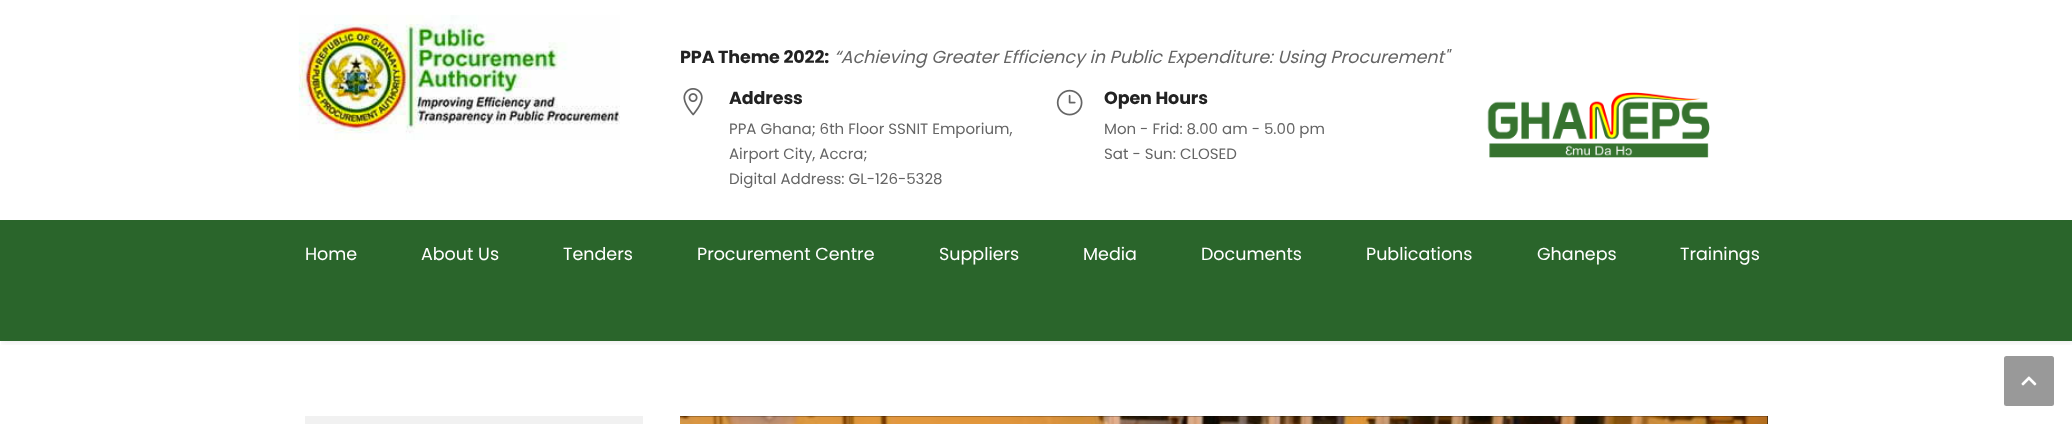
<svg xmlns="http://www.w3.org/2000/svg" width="2072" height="424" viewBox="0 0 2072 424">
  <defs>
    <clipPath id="clip1"><path d="M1 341h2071v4H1z"/></clipPath>
  </defs>
  <rect width="100%" height="100%" fill="#fff"/>
  <g clip-path="url(#clip1)">
    <path d="M1 1h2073v342H1z" fill="#00000012" filter="blur(3px)"/>
  </g>
  <image x="298" y="15" width="322" height="125" href="img/1.png"/>
  <image x="683" y="88" width="20" height="28" href="img/2.png"/>
  <image x="1056" y="89" width="27" height="27" href="img/3.png"/>
  <image x="1487" y="92" width="223" height="66" href="img/4.png"/>
  <path d="M0 220h2072v121H0z" fill="#2a652b"/>
  <rect x="2004" y="356" width="50" height="50" rx="2.5" fill="#999"/>
  <image x="2021" y="376" width="16" height="10" href="img/5.png"/>
  <path d="M305 416h338v8H305z" fill="#f1f1f1"/>
  <path d="M680 416h1088v8H680z" fill="#000"/>
  <image x="680" y="416" width="1088" height="8" href="img/6.png"/>
  <text x="680" y="63" font-family="Poppins" font-size="17.5" font-weight="bold" letter-spacing="-0.1" fill="#222">PPA Theme 2022:</text>
  <text x="834" y="63" font-family="Poppins" font-size="17.5" font-style="italic" fill="#656565">“Achieving Greater Efficiency in Public Expenditure: Using Procurement"</text>
  <text x="729" y="104" font-family="Poppins" font-size="17.5" font-weight="bold" letter-spacing="-0.1" fill="#222">Address</text>
  <g font-family="Poppins" font-size="15" fill="#656565">
    <text x="729" y="134">PPA Ghana; 6th Floor SSNIT Emporium,</text>
    <text x="729" y="159">Airport City, Accra;</text>
    <text x="729" y="184">Digital Address: GL-126-5328</text>
  </g>
  <text x="1104" y="104" font-family="Poppins" font-size="17.5" font-weight="bold" letter-spacing="-0.1" fill="#222">Open Hours</text>
  <g font-family="Poppins" font-size="15" fill="#656565">
    <text x="1104" y="134">Mon - Frid: 8.00 am - 5.00 pm</text>
    <text x="1104" y="159">Sat - Sun: CLOSED</text>
  </g>
  <g font-family="Poppins" font-size="17.5" fill="#fff">
    <text x="305" y="260">Home</text>
    <text x="421" y="260">About Us</text>
    <text x="563" y="260">Tenders</text>
    <text x="697" y="260">Procurement Centre</text>
    <text x="939" y="260">Suppliers</text>
    <text x="1083" y="260">Media</text>
    <text x="1201" y="260">Documents</text>
    <text x="1366" y="260">Publications</text>
    <text x="1537" y="260">Ghaneps</text>
    <text x="1680" y="260">Trainings</text>
  </g>
</svg>
